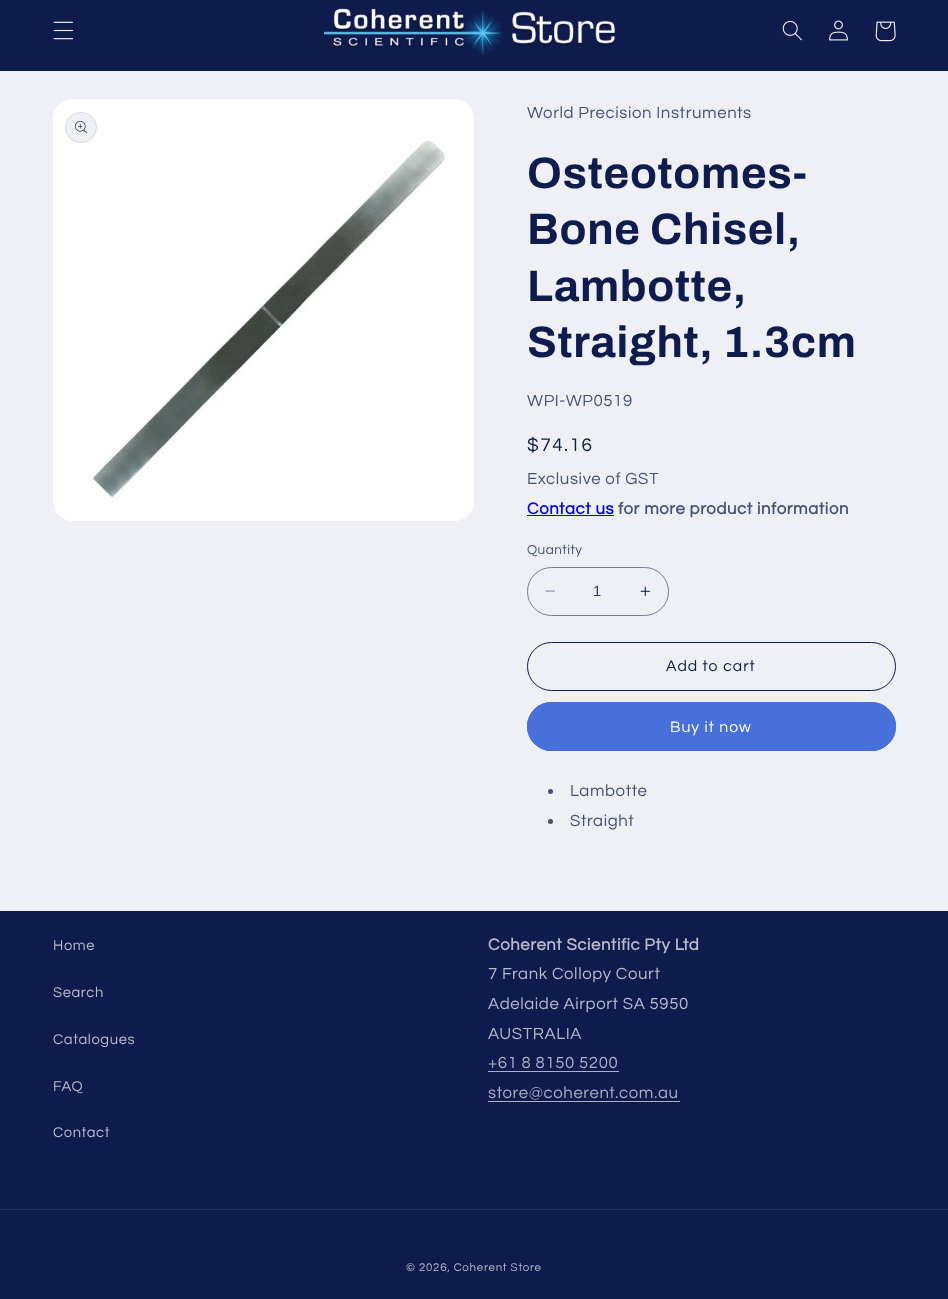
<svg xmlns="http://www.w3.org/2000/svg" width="948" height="1299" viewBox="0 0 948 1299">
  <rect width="100%" height="100%" fill="#eff0f5"/>
  <path d="M0 0h948v71H0z" fill="#0e1b4d"/>
  <image x="53" y="21" width="20" height="19" href="img/1.png"/>
  <image x="324" y="8" width="292" height="47" href="img/2.png"/>
  <image x="782" y="20" width="20" height="21" href="img/3.png"/>
  <image x="829" y="20" width="19" height="21" href="img/4.png"/>
  <image x="875" y="21" width="21" height="21" href="img/5.png"/>
  <image x="53" y="99" width="421" height="422" href="img/6.png"/>
  <rect x="65" y="112" width="32" height="31" rx="15.5" fill="#eff0f5"/>
  <rect x="65.5" y="112.5" width="31" height="30" rx="15" fill="none" stroke="#0e1b4d1a"/>
  <image x="75" y="121" width="12" height="13" href="img/7.png"/>
  <path d="M527 515h87v1H527z" fill="#00e"/>
  <image x="545" y="590" width="10" height="2" href="img/8.png"/>
  <image x="640" y="586" width="10" height="10" href="img/9.png"/>
  <rect x="527.5" y="567.5" width="141" height="48" rx="24" fill="none" stroke="#737b99"/>
  <rect x="527.5" y="642.5" width="368" height="48" rx="24" fill="none" stroke="#0e1b4d"/>
  <rect x="527" y="702" width="369" height="49" rx="24.5" fill="#4770db"/>
  <rect x="527.5" y="702.5" width="368" height="48" rx="24" fill="none" stroke="#4770db"/>
  <circle cx="550.5" cy="791.5" r="2.5" fill="#465077"/>
  <circle cx="550.5" cy="821.5" r="2.5" fill="#465077"/>
  <path d="M0 911h948v388H0z" fill="#0e1b4d"/>
  <path d="M488 1071h131v1H488z" fill="#acb0c3"/>
  <path d="M488 1101h192v1H488z" fill="#acb0c3"/>
  <path d="M0 1209h948v1H0z" fill="#202c5a"/>
  <text x="527" y="118" font-family="Questrial" font-size="16.75" letter-spacing="0.6" fill="#465077">World Precision Instruments</text>
  <g font-family="Archivo" font-size="44" font-weight="bold" letter-spacing="0.7" fill="#0e1b4d">
    <text x="527" y="188">Osteotomes-</text>
    <text x="527" y="244">Bone Chisel,</text>
    <text x="527" y="301">Lambotte,</text>
    <text x="527" y="357">Straight, 1.3cm</text>
  </g>
  <text x="527" y="406" font-family="Questrial" font-size="16.75" letter-spacing="0.6" fill="#465077">WPI-WP0519</text>
  <text x="527" y="451" font-family="Questrial" font-size="19" letter-spacing="1.5" fill="#0e1b4d">$74.16</text>
  <text x="527" y="484" font-family="Questrial" font-size="16.75" letter-spacing="0.6" fill="#465077">Exclusive of GST</text>
  <text x="527" y="514" font-family="Questrial" font-size="16.75" font-weight="bold" letter-spacing="0.6" fill="#00e">Contact us</text>
  <text x="618" y="514" font-family="Questrial" font-size="16.75" font-weight="bold" letter-spacing="0.6" fill="#465077">for more product information</text>
  <text x="527" y="554" font-family="Questrial" font-size="13.5" letter-spacing="0.5" fill="#465077">Quantity</text>
  <text x="593" y="596" font-family="Liberation Sans" font-size="14.75" fill="#303b66">1</text>
  <text x="666" y="671" font-family="Questrial" font-size="15.75" letter-spacing="1" fill="#0e1b4d">Add to cart</text>
  <text x="670" y="732" font-family="Questrial" font-size="15.75" letter-spacing="1" fill="#fff">Buy it now</text>
  <g font-family="Questrial" font-size="16.75" letter-spacing="0.6" fill="#465077">
    <text x="570" y="796">Lambotte</text>
    <text x="570" y="826">Straight</text>
  </g>
  <g font-family="Questrial" font-size="14.75" letter-spacing="0.6" fill="#b7bbcb">
    <text x="53" y="950">Home</text>
    <text x="53" y="997">Search</text>
    <text x="53" y="1044">Catalogues</text>
    <text x="53" y="1091">FAQ</text>
    <text x="53" y="1137">Contact</text>
  </g>
  <text x="488" y="950" font-family="Questrial" font-size="16.75" font-weight="bold" letter-spacing="0.6" fill="#b7bbcb">Coherent Scientific Pty Ltd</text>
  <g font-family="Questrial" font-size="16.75" letter-spacing="0.6" fill="#b7bbcb">
    <text x="488" y="979">7 Frank Collopy Court</text>
    <text x="488" y="1009">Adelaide Airport SA 5950</text>
    <text x="488" y="1039">AUSTRALIA</text>
  </g>
  <g font-family="Questrial" font-size="16.75" letter-spacing="0.6" fill="#acb0c3">
    <text x="488" y="1068">+61 8 8150 5200</text>
    <text x="488" y="1098">store@coherent.com.au</text>
  </g>
  <text x="406" y="1271" font-family="Questrial" font-size="11.5" letter-spacing="0.75" fill="#b7bbcb">© 2026, Coherent Store</text>
</svg>
